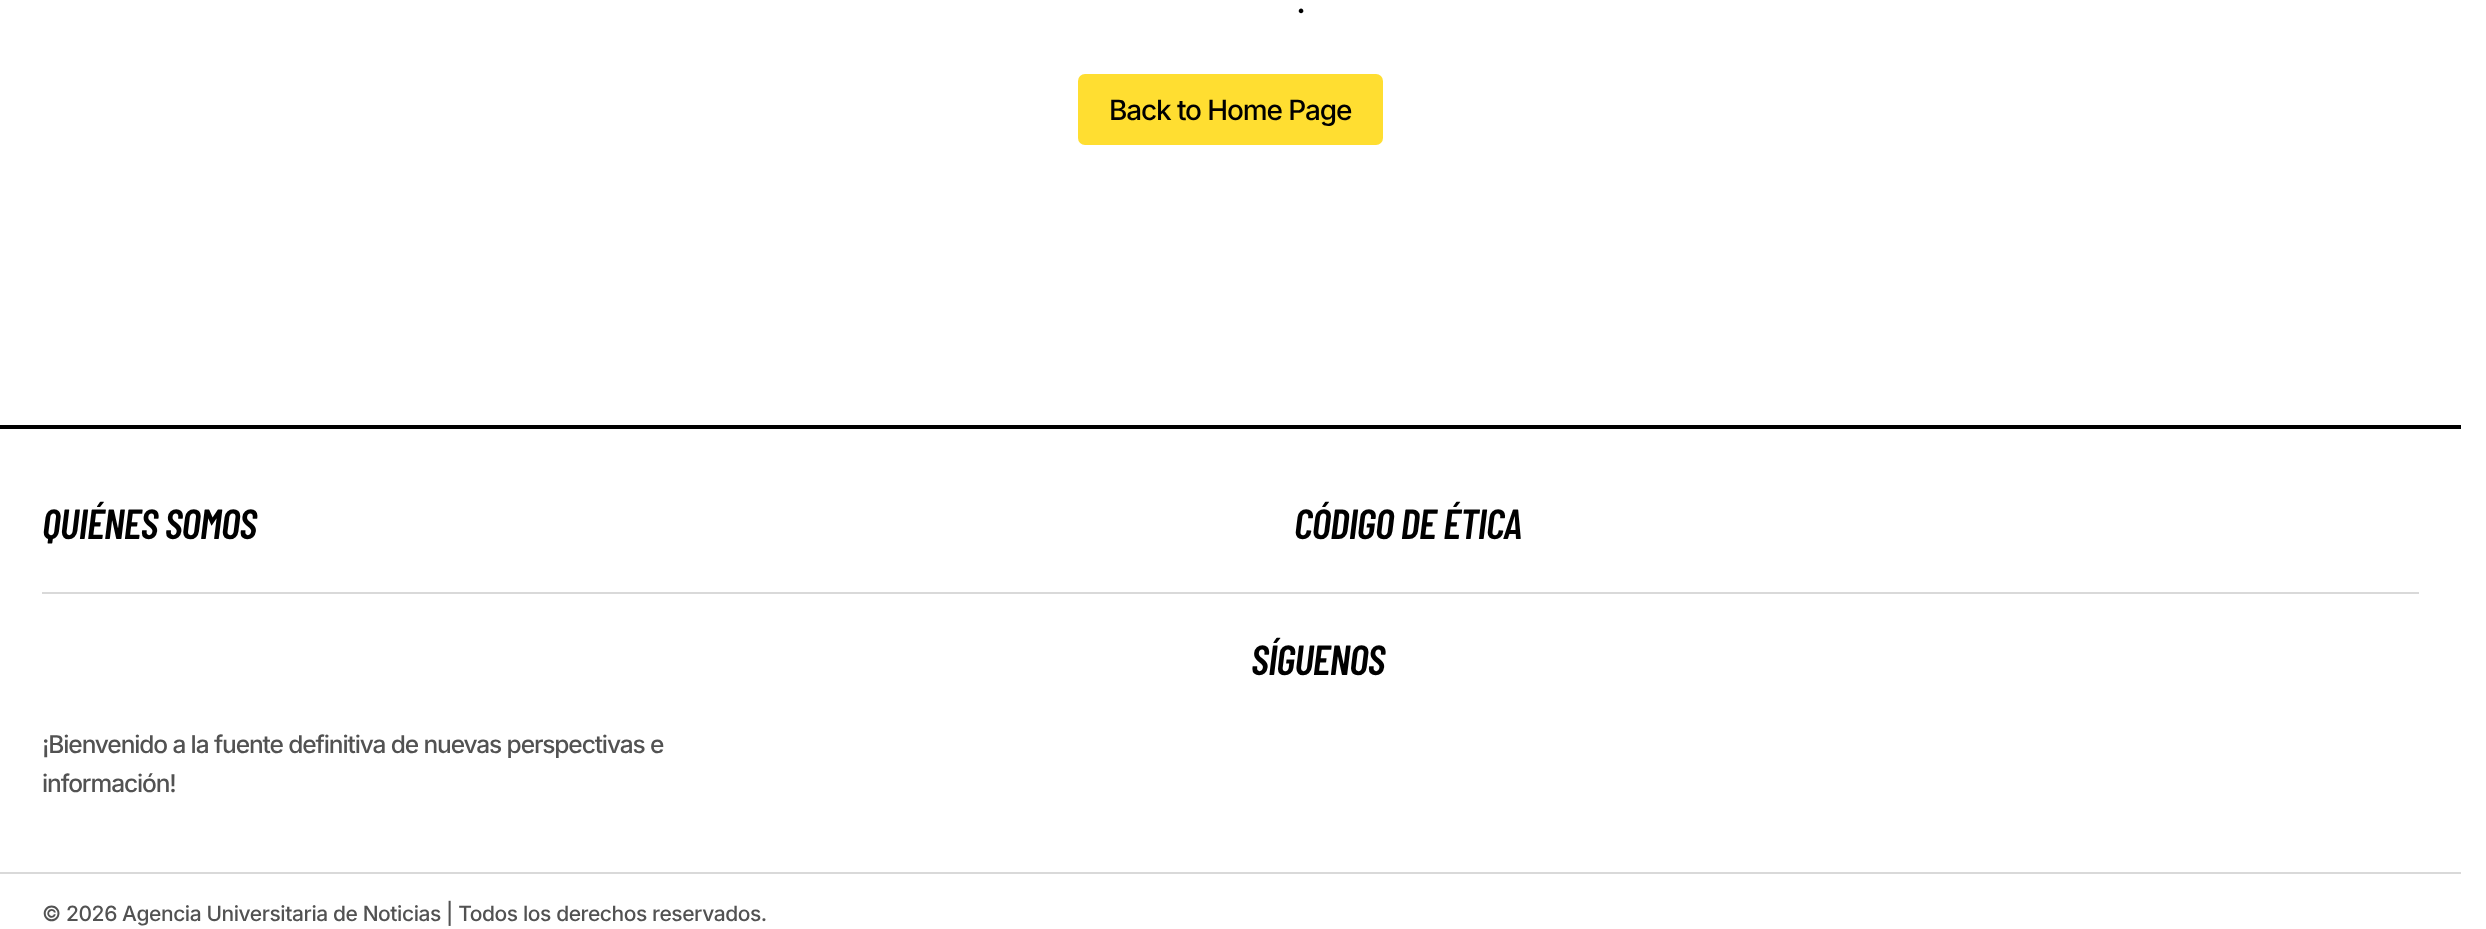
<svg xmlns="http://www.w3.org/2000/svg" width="2486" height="929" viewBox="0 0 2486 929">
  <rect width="100%" height="100%" fill="#fff"/>
  <rect x="1078" y="74" width="305" height="71" rx="7" fill="#ffde31"/>
  <path d="M0 425h2461v4H0z" fill="#000"/>
  <path d="M42 592h2377v2H42z" fill="#d9d9d9"/>
  <path d="M0 872h2461v2H0z" fill="#d9d9d9"/>
  <text x="1296" y="13" font-family="Inter" font-size="35" fill="#000">.</text>
  <text x="1109" y="120" font-family="Inter" font-size="28" font-weight="500" letter-spacing="-1.12" fill="#000">Back to Home Page</text>
  <g font-family="Barlow Condensed" font-size="42" font-weight="600" font-style="italic" letter-spacing="-0.8" fill="#000">
    <text x="42" y="539">QUIÉNES SOMOS</text>
    <text x="1294" y="539">CÓDIGO DE ÉTICA</text>
    <text x="1251" y="675">SÍGUENOS</text>
  </g>
  <g font-family="Inter" font-size="24.5" font-weight="500" letter-spacing="-1.12" fill="#525252">
    <text x="42" y="753">¡Bienvenido a la fuente definitiva de nuevas perspectivas e</text>
    <text x="42" y="792">información!</text>
  </g>
  <text x="42" y="921" font-family="Inter" font-size="21" font-weight="500" letter-spacing="-0.42" fill="#525252">© 2026 Agencia Universitaria de Noticias | Todos los derechos reservados.</text>
</svg>
